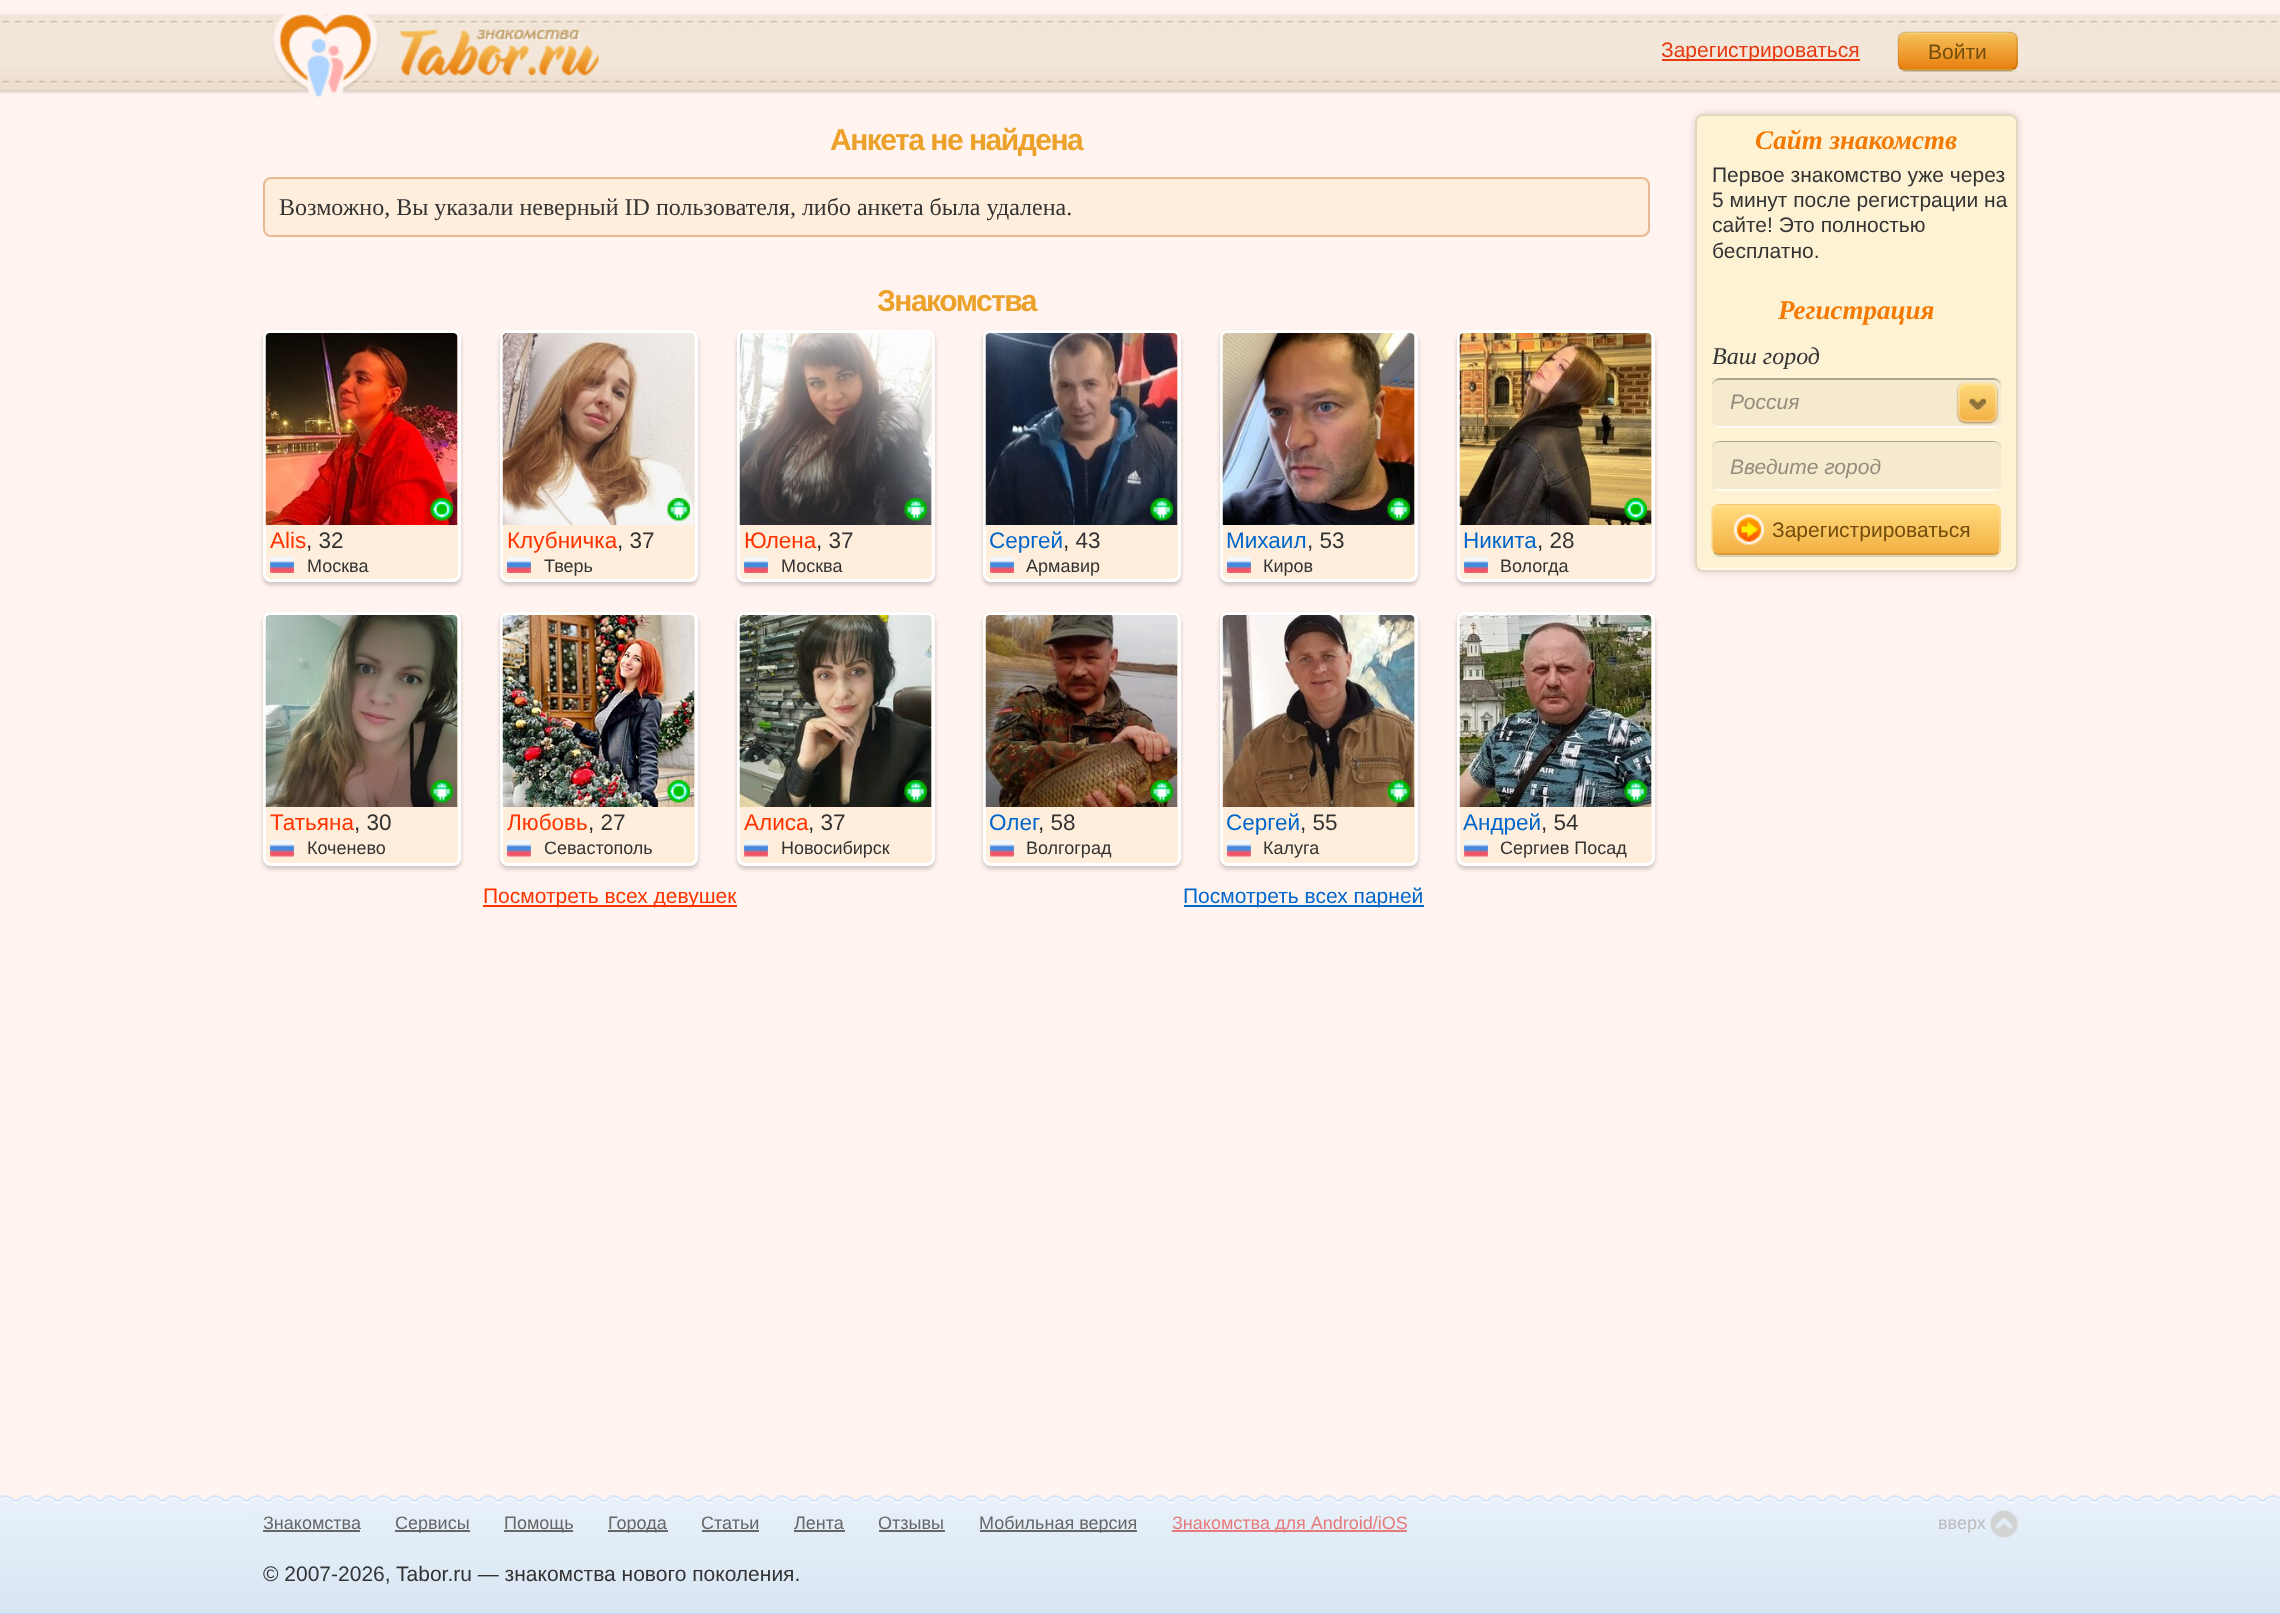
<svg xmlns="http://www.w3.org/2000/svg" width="2280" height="1614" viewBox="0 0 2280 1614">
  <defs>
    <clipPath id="clip1"><rect x="1898" y="32" width="120" height="39" rx="8"/></clipPath>
    <linearGradient id="g1" gradientUnits="userSpaceOnUse" x1="1958" y1="33" x2="1958" y2="69"><stop offset="0" stop-color="#f6c25b"/><stop offset="1" stop-color="#e8800f"/></linearGradient>
    <linearGradient id="g2" gradientUnits="userSpaceOnUse" x1="1977" y1="383" x2="1977" y2="422"><stop offset="0" stop-color="#ffdc7e"/><stop offset="1" stop-color="#f2af42"/></linearGradient>
    <clipPath id="clip2"><rect x="1712" y="504" width="289" height="51" rx="8"/></clipPath>
    <linearGradient id="g3" gradientUnits="userSpaceOnUse" x1="1856" y1="506" x2="1856" y2="554"><stop offset="0" stop-color="#ffdc7e"/><stop offset="1" stop-color="#f2af42"/></linearGradient>
    <linearGradient id="g4" gradientUnits="userSpaceOnUse" x1="1140" y1="1500" x2="1140" y2="1613"><stop offset="0" stop-color="#e8f1fa"/><stop offset="1" stop-color="#d8e6f2"/></linearGradient>
  </defs>
  <rect width="100%" height="100%" fill="#fff4f0"/>
  <image x="0" y="13" width="2280" height="81" href="img/1.png"/>
  <image x="272" y="13" width="327" height="85" href="img/2.png"/>
  <path d="M1662 59h198v2H1662z" fill="#e8380f"/>
  <path d="M1898 67C1900 70 1903 72 1906 72H2010C2014 72 2018 68 2018 64V41L2017 38V65C2015 74 1997 70 1992 70H1922C1919 70 1903 74 1898 67Z" fill="#00000026"/>
  <rect x="1898" y="32" width="120" height="39" rx="8" fill="#f6c25b"/>
  <g clip-path="url(#clip1)">
    <path d="M1898 33h120v36H1898z" fill="url(#g1)"/>
  </g>
  <path d="M1905 34H2010C2013 34 2016 37 2016 40C2016 29 1998 33 1992 33H1922C1917 33 1899 29 1899 40C1899 37 1902 34 1905 34Z" fill="#ffffff40"/>
  <path d="M2015 68C2013.5 69 2012 70 2010 70H1905C1903 70 1901.5 69 1900 68" fill="none" stroke="#00000040" stroke-width="1.5"/>
  <path d="M1900 68C1897 64.5 1898 59 1898 55C1898 29.5 1895.5 32 1922.5 32H1992.5C2019.5 32 2017 29.5 2017 55C2017 59 2018 64.5 2015 68" fill="none" stroke="#0000001a" stroke-width="1.5"/>
  <rect x="264" y="178" width="1385" height="58" rx="7" fill="#ffeedb" stroke="#e8b992" stroke-width="2"/>
  <rect x="263" y="333" width="198" height="252" rx="8" fill="#00000033" filter="blur(2px)"/>
  <rect x="264.5" y="331.5" width="195" height="249" rx="6.5" fill="#ffeedb" stroke="#fff" stroke-width="3"/>
  <image x="265" y="333" width="193" height="192" href="img/3.png"/>
  <image x="430" y="498" width="23" height="23" href="img/4.png"/>
  <image x="270" y="556" width="24" height="17" href="img/5.png"/>
  <rect x="500" y="333" width="198" height="252" rx="8" fill="#00000033" filter="blur(2px)"/>
  <rect x="501.5" y="331.5" width="195" height="249" rx="6.5" fill="#ffeedb" stroke="#fff" stroke-width="3"/>
  <image x="502" y="333" width="193" height="192" href="img/6.png"/>
  <image x="667" y="498" width="23" height="23" href="img/7.png"/>
  <image x="507" y="556" width="24" height="17" href="img/8.png"/>
  <rect x="737" y="333" width="198" height="252" rx="8" fill="#00000033" filter="blur(2px)"/>
  <rect x="738.5" y="331.5" width="195" height="249" rx="6.5" fill="#ffeedb" stroke="#fff" stroke-width="3"/>
  <image x="739" y="333" width="193" height="192" href="img/9.png"/>
  <image x="904" y="498" width="23" height="23" href="img/10.png"/>
  <image x="744" y="556" width="24" height="17" href="img/11.png"/>
  <rect x="263" y="615" width="198" height="254" rx="8" fill="#00000033" filter="blur(2px)"/>
  <rect x="264.5" y="613.5" width="195" height="251" rx="6.5" fill="#ffeedb" stroke="#fff" stroke-width="3"/>
  <image x="265" y="615" width="193" height="192" href="img/12.png"/>
  <image x="430" y="780" width="23" height="23" href="img/13.png"/>
  <image x="270" y="840" width="24" height="17" href="img/14.png"/>
  <rect x="500" y="615" width="198" height="254" rx="8" fill="#00000033" filter="blur(2px)"/>
  <rect x="501.5" y="613.5" width="195" height="251" rx="6.5" fill="#ffeedb" stroke="#fff" stroke-width="3"/>
  <image x="502" y="615" width="193" height="192" href="img/15.png"/>
  <image x="667" y="780" width="23" height="23" href="img/16.png"/>
  <image x="507" y="840" width="24" height="17" href="img/17.png"/>
  <rect x="737" y="615" width="198" height="254" rx="8" fill="#00000033" filter="blur(2px)"/>
  <rect x="738.5" y="613.5" width="195" height="251" rx="6.5" fill="#ffeedb" stroke="#fff" stroke-width="3"/>
  <image x="739" y="615" width="193" height="192" href="img/18.png"/>
  <image x="904" y="780" width="23" height="23" href="img/19.png"/>
  <image x="744" y="840" width="24" height="17" href="img/20.png"/>
  <path d="M483 905h254v2H483z" fill="#f30"/>
  <rect x="983" y="333" width="198" height="252" rx="8" fill="#00000033" filter="blur(2px)"/>
  <rect x="984.5" y="331.5" width="195" height="249" rx="6.5" fill="#ffeedb" stroke="#fff" stroke-width="3"/>
  <image x="985" y="333" width="193" height="192" href="img/21.png"/>
  <image x="1150" y="498" width="23" height="23" href="img/22.png"/>
  <image x="990" y="556" width="24" height="17" href="img/23.png"/>
  <rect x="1220" y="333" width="198" height="252" rx="8" fill="#00000033" filter="blur(2px)"/>
  <rect x="1221.5" y="331.5" width="195" height="249" rx="6.5" fill="#ffeedb" stroke="#fff" stroke-width="3"/>
  <image x="1222" y="333" width="193" height="192" href="img/24.png"/>
  <image x="1387" y="498" width="23" height="23" href="img/25.png"/>
  <image x="1227" y="556" width="24" height="17" href="img/11.png"/>
  <rect x="1457" y="333" width="198" height="252" rx="8" fill="#00000033" filter="blur(2px)"/>
  <rect x="1458.5" y="331.5" width="195" height="249" rx="6.5" fill="#ffeedb" stroke="#fff" stroke-width="3"/>
  <image x="1459" y="333" width="193" height="192" href="img/26.png"/>
  <image x="1624" y="498" width="23" height="23" href="img/27.png"/>
  <image x="1464" y="556" width="24" height="17" href="img/11.png"/>
  <rect x="983" y="615" width="198" height="254" rx="8" fill="#00000033" filter="blur(2px)"/>
  <rect x="984.5" y="613.5" width="195" height="251" rx="6.5" fill="#ffeedb" stroke="#fff" stroke-width="3"/>
  <image x="985" y="615" width="193" height="192" href="img/28.png"/>
  <image x="1150" y="780" width="23" height="23" href="img/29.png"/>
  <image x="990" y="840" width="24" height="17" href="img/30.png"/>
  <rect x="1220" y="615" width="198" height="254" rx="8" fill="#00000033" filter="blur(2px)"/>
  <rect x="1221.5" y="613.5" width="195" height="251" rx="6.5" fill="#ffeedb" stroke="#fff" stroke-width="3"/>
  <image x="1222" y="615" width="193" height="192" href="img/31.png"/>
  <image x="1387" y="780" width="23" height="23" href="img/32.png"/>
  <image x="1227" y="840" width="24" height="17" href="img/20.png"/>
  <rect x="1457" y="615" width="198" height="254" rx="8" fill="#00000033" filter="blur(2px)"/>
  <rect x="1458.5" y="613.5" width="195" height="251" rx="6.5" fill="#ffeedb" stroke="#fff" stroke-width="3"/>
  <image x="1459" y="615" width="193" height="192" href="img/33.png"/>
  <image x="1624" y="780" width="23" height="23" href="img/34.png"/>
  <image x="1464" y="840" width="24" height="17" href="img/20.png"/>
  <path d="M1184 905h240v2H1184z" fill="#06c"/>
  <rect x="1695" y="114" width="323" height="458" rx="8" fill="#00000026" filter="blur(4px)"/>
  <rect x="1695" y="114" width="323" height="458" rx="8" fill="#fdf2d4"/>
  <path d="M1697 566C1698 568 1700 570 1703 570H2010C2013 570 2016 567 2016 564V562C2016 566 2013 568 2010 568H1702C1700 568 1698 567 1697 566Z" fill="#fef9ea"/>
  <rect x="1696" y="115" width="321" height="456" rx="7" fill="none" stroke="#e4d5be" stroke-width="2"/>
  <path d="M1712 422C1713 425 1716 428 1720 428H1993C1997 428 2001 424 2001 420V418C2001 423 1998 426 1994 426H1719C1716 426 1713 424 1712 422Z" fill="#fffcf6"/>
  <path d="M1712 378h289v48H1712z" fill="#00000008"/>
  <path d="M1719 380H1994C1998 380 2001 383 2001 387V386C2001 382 1997 378 1993 378H1720C1716 378 1712 382 1712 386V387C1712 383 1715 380 1719 380Z" fill="#aca490"/>
  <rect x="1958" y="384" width="39" height="39" rx="8" fill="#7d6133bf" filter="blur(1px)"/>
  <rect x="1958" y="383" width="39" height="39" rx="8" fill="url(#g2)"/>
  <rect x="1959" y="384" width="37" height="37" rx="7" fill="none" stroke="#ffffff40" stroke-width="2"/>
  <image x="1969" y="398" width="17" height="13" href="img/35.png"/>
  <path d="M1712 485C1713 488 1716 491 1720 491H1993C1997 491 2001 487 2001 483V482C2001 486 1998 489 1994 489H1719C1716 489 1713 487 1712 485Z" fill="#fffcf6"/>
  <path d="M1712 441h289v48H1712z" fill="#00000008"/>
  <path d="M1719 442H1994C1998 442 2001 446 2001 450V449C2001 445 1997 441 1993 441H1720C1716 441 1712 445 1712 449V450C1712 446 1715 442 1719 442Z" fill="#aca490"/>
  <path d="M1712 551C1713 554 1716 557 1720 557H1993C1997 557 2001 553 2001 549V548C2001 552 1998 555 1994 555H1719C1716 555 1713 553 1712 551Z" fill="#d7ceb4"/>
  <rect x="1712" y="504" width="289" height="51" rx="8" fill="#f2af42"/>
  <g clip-path="url(#clip2)">
    <path d="M1712 506h289v48H1712z" fill="url(#g3)"/>
  </g>
  <path d="M1719 507H1994C1997 507 2000 510 2000 513V512C2000 509 1997 506 1994 506H1719C1716 506 1713 509 1713 512V513C1713 510 1716 507 1719 507Z" fill="#ffe59d"/>
  <path d="M1998.5 552.5C1997 553.5 1995.5 554 1993.5 554H1719C1717 554 1715.5 553.5 1714 552.5" fill="none" stroke="#00000026" stroke-width="1.5"/>
  <path d="M1714 552.5C1713 551 1712 549.5 1712 547.5V511.5C1712 509.5 1713 508 1714 506.5C1715.5 505.5 1717 505 1719 505H1993.5C1995.5 505 1997 505.5 1998.5 506.5C1999.5 508 2000 509.5 2000 511.5V547.5C2000 549.5 1999.5 551 1998.5 552.5" fill="none" stroke="#fbd98f" stroke-width="1.5"/>
  <image x="1734" y="514" width="30" height="31" href="img/36.png"/>
  <path d="M0 1503h2280v110H0z" fill="url(#g4)"/>
  <path d="M0 1613h2280v1H0z" fill="#c2dcfb"/>
  <image x="0" y="1495" width="2280" height="8" href="img/37.png"/>
  <path d="M263 1530h97v2H263z" fill="#666"/>
  <path d="M395 1530h75v2H395z" fill="#666"/>
  <path d="M504 1530h69v2H504z" fill="#666"/>
  <path d="M608 1530h60v2H608z" fill="#666"/>
  <path d="M702 1530h57v2H702z" fill="#666"/>
  <path d="M794 1530h51v2H794z" fill="#666"/>
  <path d="M879 1530h66v2H879z" fill="#666"/>
  <path d="M980 1530h157v2H980z" fill="#666"/>
  <path d="M1172 1530h235v2H1172z" fill="#e57c7b"/>
  <image x="1990" y="1510" width="28" height="28" href="img/38.png"/>
  <text x="1661" y="57" font-family="Liberation Sans" font-size="21" fill="#e8380f">Зарегистрироваться</text>
  <text x="1928" y="59" font-family="Liberation Sans" font-size="21" fill="#734d0c">Войти</text>
  <text x="830" y="150" font-family="Liberation Sans" font-size="30" font-weight="bold" letter-spacing="-1.5" fill="#eca22a">Анкета не найдена</text>
  <text x="279" y="215" font-family="Liberation Serif" font-size="24" fill="#333">Возможно, Вы указали неверный ID пользователя, либо анкета была удалена.</text>
  <text x="877" y="311" font-family="Liberation Sans" font-size="30" font-weight="bold" letter-spacing="-1.5" fill="#eca22a">Знакомства</text>
  <text x="270" y="548" font-family="Liberation Sans" font-size="22.5" fill="#f30">Alis</text>
  <text x="306" y="548" font-family="Liberation Sans" font-size="22.5" fill="#333">, 32</text>
  <text x="307" y="572" font-family="Liberation Sans" font-size="18" fill="#333">Москва</text>
  <text x="507" y="548" font-family="Liberation Sans" font-size="22.5" fill="#f30">Клубничка</text>
  <text x="617" y="548" font-family="Liberation Sans" font-size="22.5" fill="#333">, 37</text>
  <text x="544" y="572" font-family="Liberation Sans" font-size="18" fill="#333">Тверь</text>
  <text x="744" y="548" font-family="Liberation Sans" font-size="22.5" fill="#f30">Юлена</text>
  <text x="816" y="548" font-family="Liberation Sans" font-size="22.5" fill="#333">, 37</text>
  <text x="781" y="572" font-family="Liberation Sans" font-size="18" fill="#333">Москва</text>
  <text x="270" y="830" font-family="Liberation Sans" font-size="22.5" fill="#f30">Татьяна</text>
  <text x="354" y="830" font-family="Liberation Sans" font-size="22.5" fill="#333">, 30</text>
  <text x="307" y="854" font-family="Liberation Sans" font-size="18" fill="#333">Коченево</text>
  <text x="507" y="830" font-family="Liberation Sans" font-size="22.5" fill="#f30">Любовь</text>
  <text x="588" y="830" font-family="Liberation Sans" font-size="22.5" fill="#333">, 27</text>
  <text x="544" y="854" font-family="Liberation Sans" font-size="18" fill="#333">Севастополь</text>
  <text x="744" y="830" font-family="Liberation Sans" font-size="22.5" fill="#f30">Алиса</text>
  <text x="808" y="830" font-family="Liberation Sans" font-size="22.5" fill="#333">, 37</text>
  <text x="781" y="854" font-family="Liberation Sans" font-size="18" fill="#333">Новосибирск</text>
  <text x="483" y="903" font-family="Liberation Sans" font-size="21" fill="#f30">Посмотреть всех девушек</text>
  <text x="989" y="548" font-family="Liberation Sans" font-size="22.5" fill="#06c">Сергей</text>
  <text x="1063" y="548" font-family="Liberation Sans" font-size="22.5" fill="#333">, 43</text>
  <text x="1026" y="572" font-family="Liberation Sans" font-size="18" fill="#333">Армавир</text>
  <text x="1226" y="548" font-family="Liberation Sans" font-size="22.5" fill="#06c">Михаил</text>
  <text x="1307" y="548" font-family="Liberation Sans" font-size="22.5" fill="#333">, 53</text>
  <text x="1263" y="572" font-family="Liberation Sans" font-size="18" fill="#333">Киров</text>
  <text x="1463" y="548" font-family="Liberation Sans" font-size="22.5" fill="#06c">Никита</text>
  <text x="1537" y="548" font-family="Liberation Sans" font-size="22.5" fill="#333">, 28</text>
  <text x="1500" y="572" font-family="Liberation Sans" font-size="18" fill="#333">Вологда</text>
  <text x="989" y="830" font-family="Liberation Sans" font-size="22.5" fill="#06c">Олег</text>
  <text x="1038" y="830" font-family="Liberation Sans" font-size="22.5" fill="#333">, 58</text>
  <text x="1026" y="854" font-family="Liberation Sans" font-size="18" fill="#333">Волгоград</text>
  <text x="1226" y="830" font-family="Liberation Sans" font-size="22.5" fill="#06c">Сергей</text>
  <text x="1300" y="830" font-family="Liberation Sans" font-size="22.5" fill="#333">, 55</text>
  <text x="1263" y="854" font-family="Liberation Sans" font-size="18" fill="#333">Калуга</text>
  <text x="1463" y="830" font-family="Liberation Sans" font-size="22.5" fill="#06c">Андрей</text>
  <text x="1541" y="830" font-family="Liberation Sans" font-size="22.5" fill="#333">, 54</text>
  <text x="1500" y="854" font-family="Liberation Sans" font-size="18" fill="#333">Сергиев Посад</text>
  <text x="1183" y="903" font-family="Liberation Sans" font-size="21" fill="#06c">Посмотреть всех парней</text>
  <text x="1755" y="149" font-family="Liberation Serif" font-size="27" font-weight="bold" font-style="italic" fill="#f47900">Сайт знакомств</text>
  <g font-family="Liberation Sans" font-size="21" fill="#333">
    <text x="1712" y="182">Первое знакомство уже через</text>
    <text x="1712" y="207">5 минут после регистрации на</text>
    <text x="1712" y="232">сайте! Это полностью</text>
    <text x="1712" y="258">бесплатно.</text>
  </g>
  <text x="1778" y="319" font-family="Liberation Serif" font-size="27" font-weight="bold" font-style="italic" fill="#f47900">Регистрация</text>
  <text x="1712" y="364" font-family="Liberation Serif" font-size="24" font-style="italic" fill="#333">Ваш город</text>
  <g font-family="Liberation Sans" font-size="21" font-style="italic" fill="#948d7e">
    <text x="1730" y="409">Россия</text>
    <text x="1730" y="474">Введите город</text>
  </g>
  <text x="1772" y="537" font-family="Liberation Sans" font-size="21" fill="#734d0c">Зарегистрироваться</text>
  <g font-family="Liberation Sans" font-size="18" fill="#666">
    <text x="263" y="1529">Знакомства</text>
    <text x="395" y="1529">Сервисы</text>
    <text x="504" y="1529">Помощь</text>
    <text x="608" y="1529">Города</text>
    <text x="701" y="1529">Статьи</text>
    <text x="794" y="1529">Лента</text>
    <text x="878" y="1529">Отзывы</text>
    <text x="979" y="1529">Мобильная версия</text>
  </g>
  <text x="1172" y="1529" font-family="Liberation Sans" font-size="18" fill="#e57c7b">Знакомства для Android/iOS</text>
  <text x="1938" y="1529" font-family="Liberation Sans" font-size="18" fill="#bbb">вверх</text>
  <text x="263" y="1581" font-family="Liberation Sans" font-size="21" fill="#333">© 2007-2026, Tabor.ru — знакомства нового поколения.</text>
</svg>
